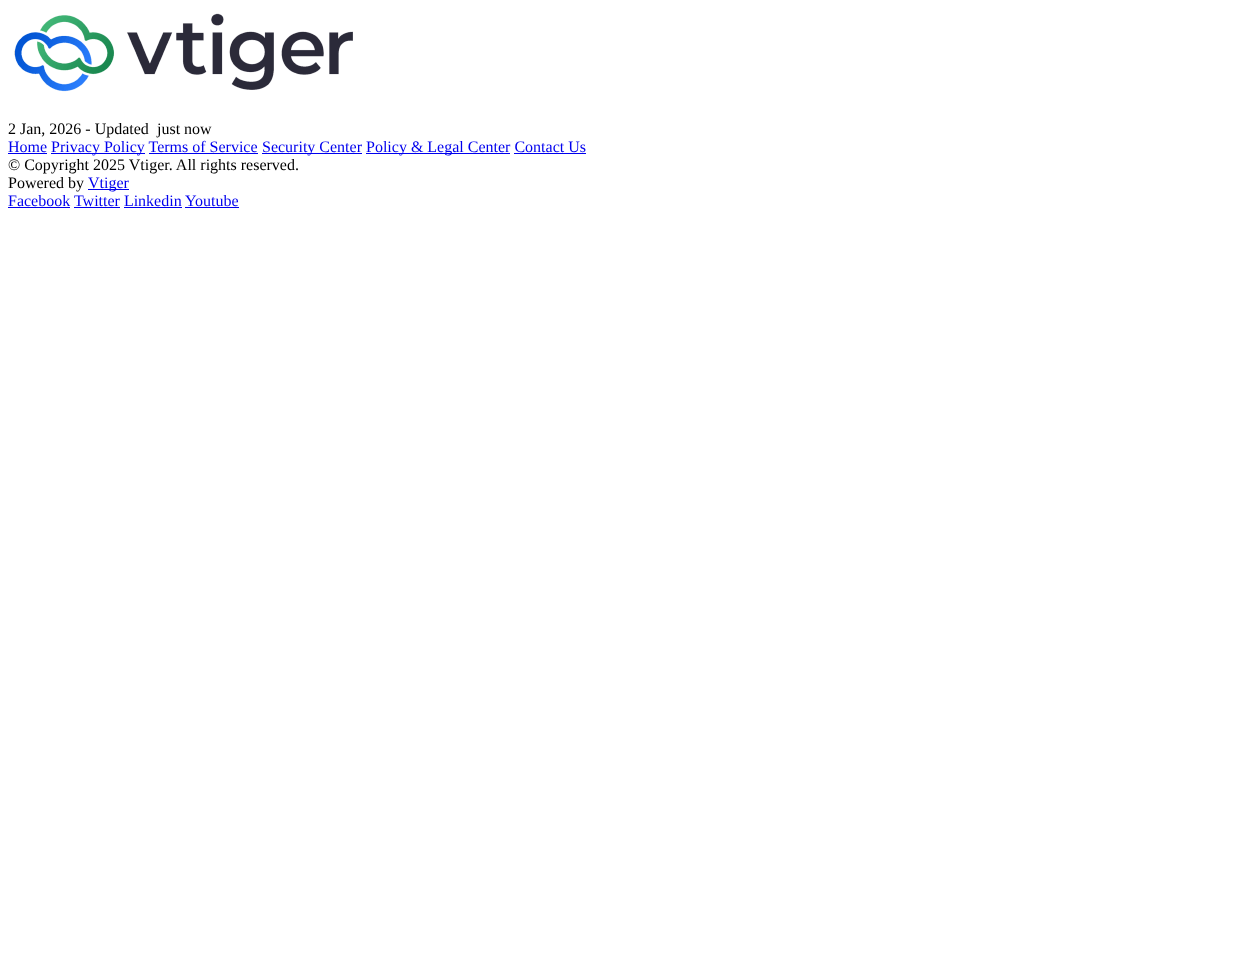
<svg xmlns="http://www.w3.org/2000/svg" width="1239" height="973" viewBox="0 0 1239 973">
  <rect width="100%" height="100%" fill="#fff"/>
  <image x="14" y="13" width="339" height="79" href="img/1.png"/>
  <path d="M8 153h39v1H8z" fill="#00e"/>
  <path d="M51 153h94v1H51z" fill="#00e"/>
  <path d="M262 153h100v1H262z" fill="#00e"/>
  <path d="M366 153h144v1H366z" fill="#00e"/>
  <path d="M149 153h109v1H149z" fill="#00e"/>
  <path d="M514 153h72v1H514z" fill="#00e"/>
  <path d="M88 189h41v1H88z" fill="#00e"/>
  <path d="M8 207h62v1H8z" fill="#00e"/>
  <path d="M185 207h54v1H185z" fill="#00e"/>
  <path d="M74 207h46v1H74z" fill="#00e"/>
  <path d="M124 207h58v1H124z" fill="#00e"/>
  <g font-family="Liberation Serif" font-size="16" fill="#000">
    <text x="8" y="134">2 Jan, 2026 - Updated</text>
    <text x="157" y="134">just now</text>
  </g>
  <g font-family="Liberation Serif" font-size="16" fill="#00e">
    <text x="8" y="152">Home</text>
    <text x="51" y="152">Privacy Policy Terms of Service</text>
    <text x="262" y="152">Security Center</text>
    <text x="366" y="152">Policy &amp; Legal Center Contact Us</text>
  </g>
  <g font-family="Liberation Serif" font-size="16" fill="#000">
    <text x="8" y="170">© Copyright 2025 Vtiger. All rights reserved.</text>
    <text x="8" y="188">Powered by</text>
  </g>
  <g font-family="Liberation Serif" font-size="16" fill="#00e">
    <text x="88" y="188">Vtiger</text>
    <text x="8" y="206">Facebook Twitter Linkedin</text>
    <text x="185" y="206">Youtube</text>
  </g>
</svg>
